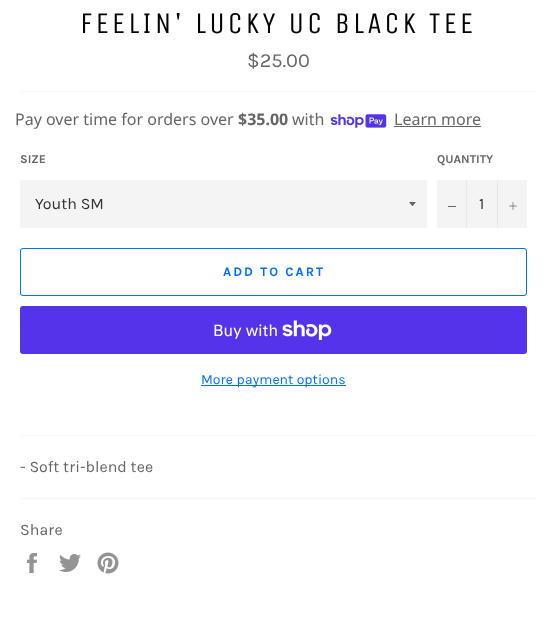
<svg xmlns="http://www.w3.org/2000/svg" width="557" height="638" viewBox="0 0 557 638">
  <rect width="100%" height="100%" fill="#fff"/>
  <path d="M20 91h517v1H20z" fill="#f7f7f7"/>
  <image x="330" y="114" width="57" height="14" href="img/1.png"/>
  <path d="M394 126h87v1H394z" fill="#666"/>
  <path d="M20 180h407v48H20z" fill="#f4f4f4"/>
  <path d="M409 202C413.5 207.5 411.5 207.5 416 202Z" fill="#666"/>
  <path d="M437 180h90v48H437z" fill="#f4f4f4"/>
  <path d="M466 180h1v48H466z" fill="#e7e7e7"/>
  <path d="M448 206h8v1H448z" fill="#666"/>
  <path d="M497 180h1v48H497z" fill="#e7e7e7"/>
  <image x="509" y="202" width="8" height="8" href="img/2.png"/>
  <rect x="20.5" y="248.5" width="506" height="47" rx="2.5" fill="none" stroke="#006eff"/>
  <rect x="20" y="306" width="507" height="48" rx="3" fill="#5433eb"/>
  <image x="282" y="320" width="50" height="20" href="img/3.png"/>
  <path d="M201 385h145v1H201z" fill="#006eff"/>
  <path d="M20 435h517v1H20z" fill="#f7f7f7"/>
  <path d="M20 498h517v1H20z" fill="#f7f7f7"/>
  <image x="27" y="553" width="10" height="20" href="img/4.png"/>
  <image x="59" y="554" width="22" height="18" href="img/5.png"/>
  <image x="97" y="552" width="22" height="22" href="img/6.png"/>
  <text x="80" y="33" font-family="Unica One" font-size="30" letter-spacing="3" fill="#030303">FEELIN' LUCKY UC BLACK TEE</text>
  <text x="247" y="67" font-family="Karla" font-size="20" fill="#666">$25.00</text>
  <text x="15" y="125" font-family="Noto Sans" font-size="16" fill="#666">Pay over time for orders over</text>
  <text x="238" y="125" font-family="Noto Sans" font-size="16" font-weight="bold" fill="#666">$35.00</text>
  <g font-family="Noto Sans" font-size="16" fill="#666">
    <text x="292" y="125">with</text>
    <text x="394" y="125">Learn more</text>
  </g>
  <text x="20" y="163" font-family="Karla" font-size="12" font-weight="bold" fill="#666">SIZE</text>
  <text x="35" y="209" font-family="Karla" font-size="16" fill="#333">Youth SM</text>
  <text x="437" y="163" font-family="Karla" font-size="12" font-weight="bold" fill="#666">QUANTITY</text>
  <text x="479" y="209" font-family="Karla" font-size="16" fill="#333">1</text>
  <text x="223" y="276" font-family="Karla" font-size="13" font-weight="bold" letter-spacing="2" fill="#006eff">ADD TO CART</text>
  <text x="213" y="336" font-family="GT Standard" font-size="16" fill="#fff">Buy with</text>
  <text x="201" y="384" font-family="Karla" font-size="14" fill="#006eff">More payment options</text>
  <g font-family="Karla" font-size="16" fill="#666">
    <text x="20" y="472">- Soft tri-blend tee</text>
    <text x="20" y="535">Share</text>
  </g>
</svg>
